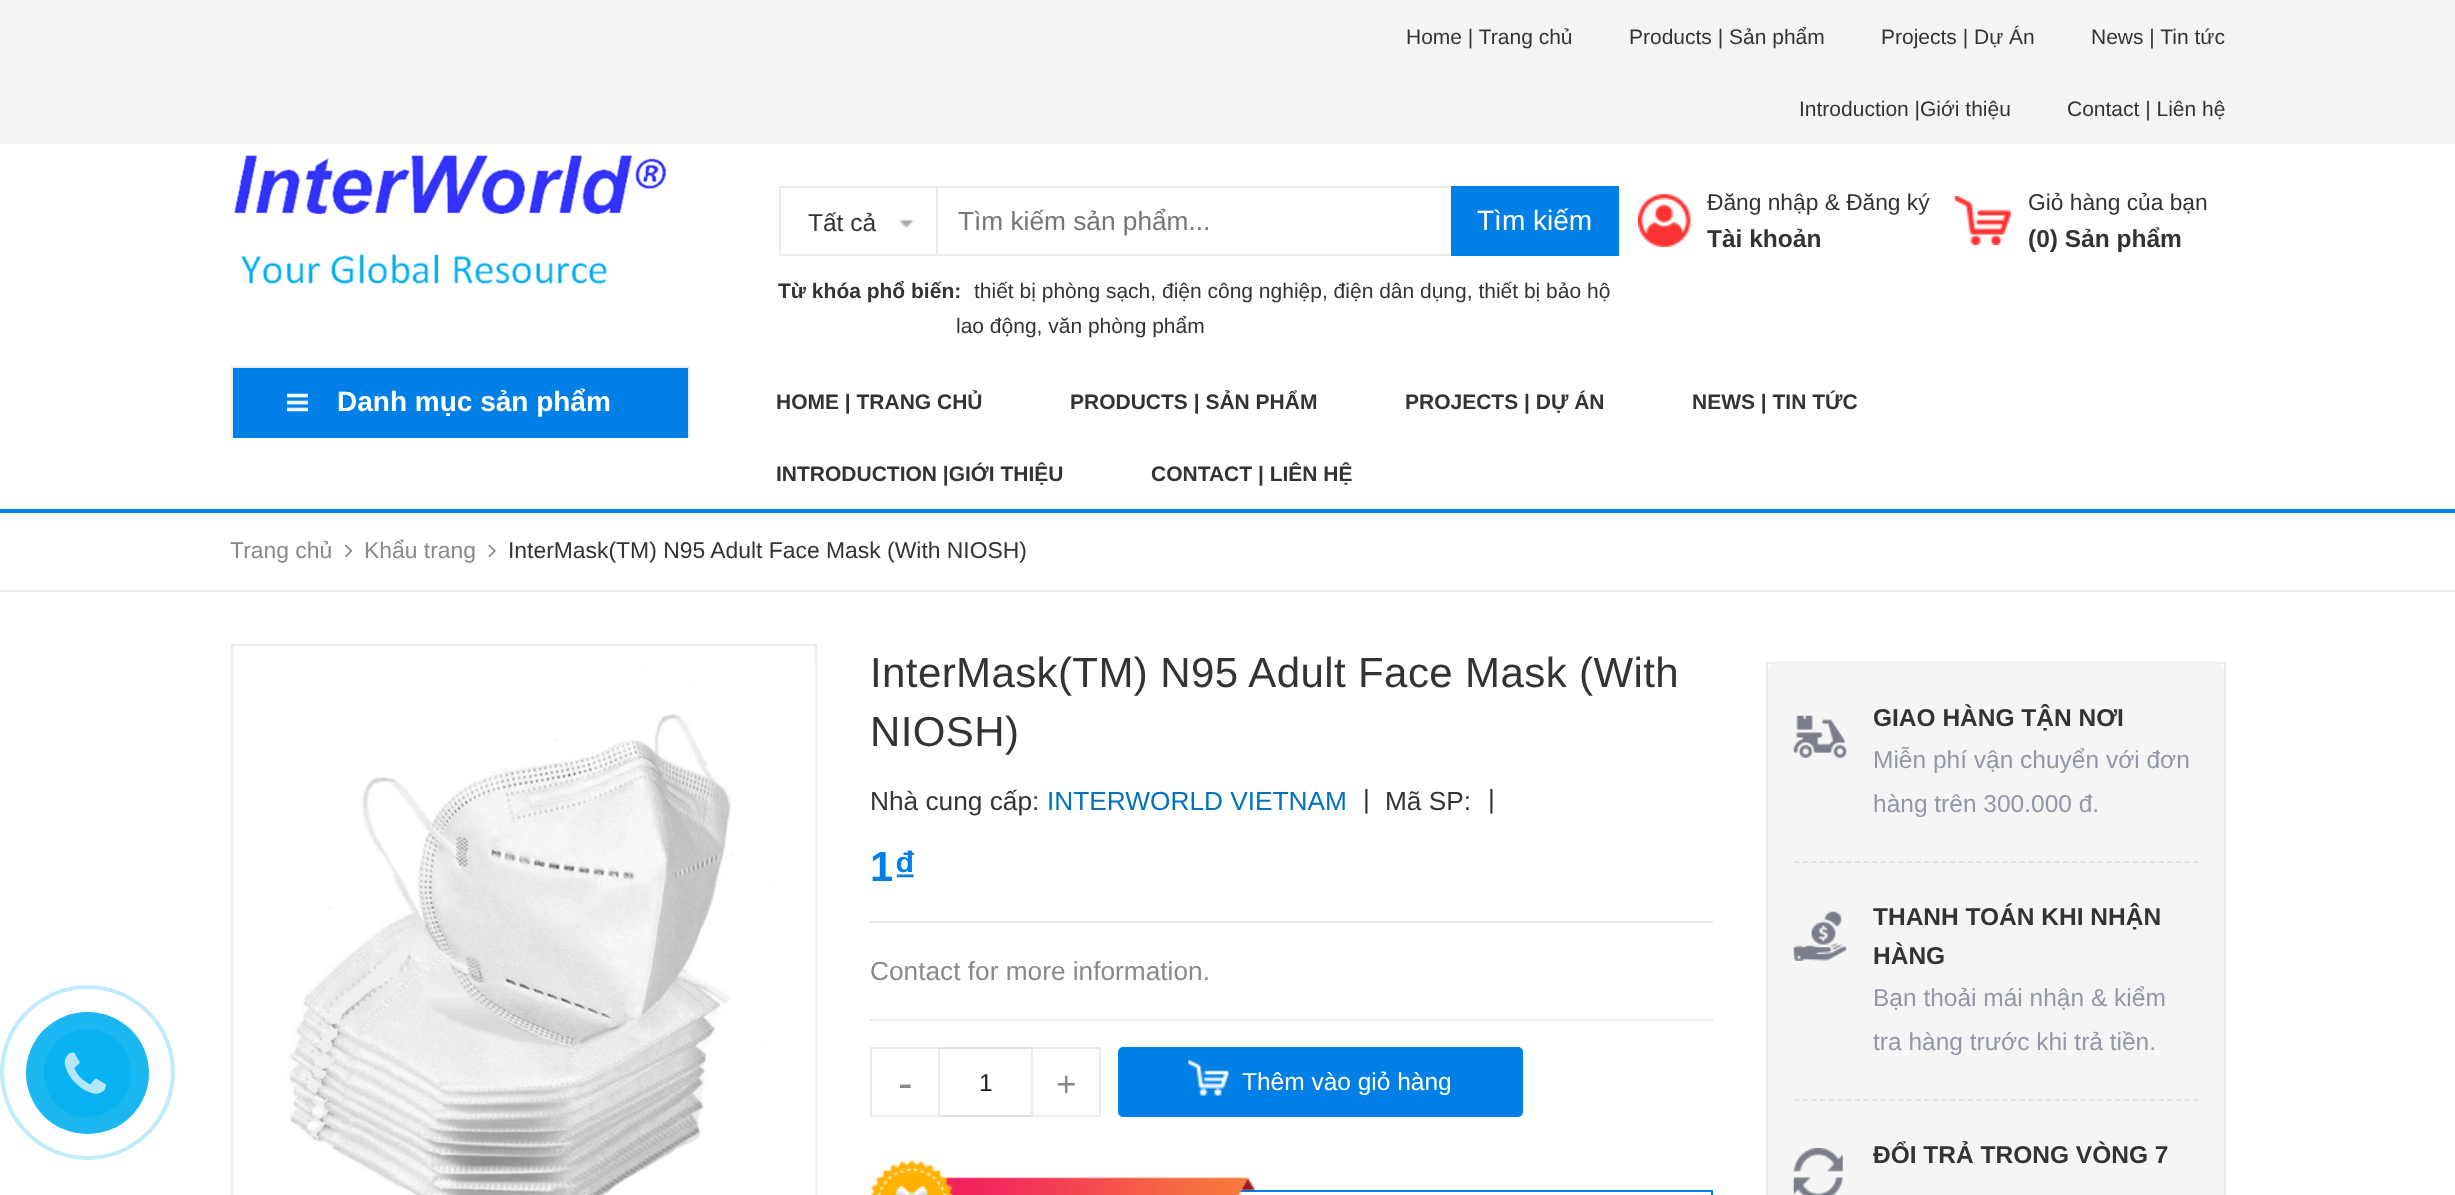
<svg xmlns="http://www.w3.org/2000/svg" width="2455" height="1195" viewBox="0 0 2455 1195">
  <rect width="100%" height="100%" fill="#fff"/>
  <path d="M0 0h2455v144H0z" fill="#f4f4f4"/>
  <image x="234" y="155" width="432" height="129" href="img/1.png"/>
  <path d="M780 187h672v68H780z" fill="none" stroke="#ebebeb" stroke-width="2"/>
  <path d="M936 186h2v70H936z" fill="#ebebeb"/>
  <image x="899" y="219" width="15" height="9" href="img/2.png"/>
  <path d="M1451 186h168v70H1451z" fill="#0080e6"/>
  <image x="1638" y="194" width="53" height="53" href="img/3.png"/>
  <image x="1954" y="196" width="57" height="49" href="img/4.png"/>
  <path d="M0 509h2455v4H0z" fill="#0080e6"/>
  <path d="M233 368h455v70H233z" fill="#0080e6"/>
  <path d="M231 366h459v2H231z" fill="#ebebeb"/>
  <path d="M688 366h2v72H688z" fill="#ebebeb"/>
  <path d="M231 366h2v72H231z" fill="#ebebeb"/>
  <image x="287" y="393" width="21" height="19" href="img/5.png"/>
  <path d="M0 590h2455v2H0z" fill="#ebebeb"/>
  <image x="345" y="544" width="8" height="14" href="img/6.png"/>
  <image x="488" y="544" width="8" height="14" href="img/7.png"/>
  <circle cx="87.5" cy="1072.5" r="85.5" fill="none" stroke="#bfebfc" stroke-width="4"/>
  <rect x="26" y="1012" width="123" height="122" rx="61" fill="#1ab7f3"/>
  <rect x="44" y="1029" width="87" height="88" rx="43.5" fill="#08b1f2"/>
  <image x="64" y="1052" width="42" height="42" href="img/8.png"/>
  <path d="M232 645h584v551H232z" fill="none" stroke="#ebebeb" stroke-width="2"/>
  <image x="232" y="660" width="584" height="535" href="img/9.png"/>
  <path d="M870 921h843v2H870z" fill="#ebebeb"/>
  <path d="M870 1019h843v2H870z" fill="#ebebeb"/>
  <path d="M871 1048h229v68H871z" fill="none" stroke="#e1e1e1" stroke-width="2"/>
  <path d="M871 1048h68v68H871z" fill="none" stroke="#ebebeb" stroke-width="2"/>
  <path d="M1032 1048h68v68H1032z" fill="none" stroke="#ebebeb" stroke-width="2"/>
  <rect x="1118" y="1047" width="405" height="70" rx="5" fill="#0080e6"/>
  <image x="1188" y="1060" width="41" height="36" href="img/10.png"/>
  <path d="M892 1191h820v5H892z" fill="none" stroke="#0080e6" stroke-width="2"/>
  <image x="869" y="1160" width="386" height="35" href="img/11.png"/>
  <path d="M1767 663h458v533H1767z" fill="none" stroke="#ebebeb" stroke-width="2"/>
  <rect x="1768" y="663" width="456" height="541" rx="9" fill="#f5f5f5"/>
  <path d="M1794 862H2198" fill="none" stroke="#e1e1e1" stroke-width="1.8" stroke-dasharray="5.25 3.43"/>
  <image x="1793" y="715" width="54" height="43" href="img/12.png"/>
  <path d="M1794 1100H2198" fill="none" stroke="#e1e1e1" stroke-width="1.8" stroke-dasharray="5.25 3.43"/>
  <image x="1793" y="911" width="54" height="50" href="img/13.png"/>
  <image x="1793" y="1148" width="50" height="47" href="img/14.png"/>
  <g font-family="Liberation Sans" font-size="21" fill="#333">
    <text x="1406" y="44">Home | Trang chủ</text>
    <text x="1629" y="44">Products | Sản phẩm</text>
    <text x="1881" y="44">Projects | Dự Án</text>
    <text x="2091" y="44">News | Tin tức</text>
    <text x="1799" y="116">Introduction |Giới thiệu</text>
    <text x="2067" y="116">Contact | Liên hệ</text>
  </g>
  <text x="808" y="231" font-family="Liberation Sans" font-size="24.5" fill="#333">Tất cả</text>
  <text x="958" y="230" font-family="Liberation Sans" font-size="26.25" fill="#757575">Tìm kiếm sản phẩm...</text>
  <text x="1477" y="230" font-family="Liberation Sans" font-size="28" fill="#fff">Tìm kiếm</text>
  <text x="778" y="298" font-family="Liberation Sans" font-size="21" font-weight="bold" fill="#333">Từ khóa phổ biến:</text>
  <g font-family="Liberation Sans" font-size="21" fill="#333">
    <text x="974" y="298">thiết bị phòng sạch, điện công nghiệp, điện dân dụng, thiết bị bảo hộ</text>
    <text x="956" y="333">lao động, văn phòng phẩm</text>
  </g>
  <text x="1707" y="210" font-family="Liberation Sans" font-size="22.75" fill="#333">Đăng nhập &amp; Đăng ký</text>
  <text x="1707" y="247" font-family="Liberation Sans" font-size="24.5" font-weight="bold" fill="#333">Tài khoản</text>
  <text x="2028" y="210" font-family="Liberation Sans" font-size="22.75" fill="#333">Giỏ hàng của bạn</text>
  <text x="2028" y="247" font-family="Liberation Sans" font-size="24.5" font-weight="bold" fill="#333">(0) Sản phẩm</text>
  <text x="337" y="411" font-family="Liberation Sans" font-size="28" font-weight="bold" fill="#fff">Danh mục sản phẩm</text>
  <g font-family="Liberation Sans" font-size="21" font-weight="bold" fill="#333">
    <text x="776" y="409">HOME | TRANG CHỦ</text>
    <text x="1070" y="409">PRODUCTS | SẢN PHẨM</text>
    <text x="1405" y="409">PROJECTS | DỰ ÁN</text>
    <text x="1692" y="409">NEWS | TIN TỨC</text>
    <text x="776" y="481">INTRODUCTION |GIỚI THIỆU</text>
    <text x="1151" y="481">CONTACT | LIÊN HỆ</text>
  </g>
  <g font-family="Liberation Sans" font-size="22.9" fill="#898989">
    <text x="230" y="558">Trang chủ</text>
    <text x="364" y="558">Khẩu trang</text>
  </g>
  <text x="508" y="558" font-family="Liberation Sans" font-size="22.9" fill="#333">InterMask(TM) N95 Adult Face Mask (With NIOSH)</text>
  <g font-family="Liberation Sans" font-size="42" letter-spacing="0.4" fill="#333">
    <text x="870" y="687">InterMask(TM) N95 Adult Face Mask (With</text>
    <text x="870" y="746">NIOSH)</text>
  </g>
  <text x="870" y="810" font-family="Liberation Sans" font-size="26.25" fill="#333">Nhà cung cấp:</text>
  <text x="1047" y="810" font-family="Liberation Sans" font-size="26.25" fill="#0072bc">INTERWORLD VIETNAM</text>
  <g font-family="Liberation Sans" font-size="26.25" fill="#333">
    <text x="1363" y="808">|</text>
    <text x="1385" y="810">Mã SP:</text>
    <text x="1488" y="808">|</text>
  </g>
  <text x="870" y="881" font-family="Liberation Sans" font-size="42" font-weight="bold" letter-spacing="1" fill="#0080e6">1₫</text>
  <text x="870" y="980" font-family="Liberation Sans" font-size="26.25" fill="#898989">Contact for more information.</text>
  <text x="898" y="1098" font-family="Liberation Sans" font-size="44" fill="#898989">-</text>
  <text x="979" y="1091" font-family="Liberation Sans" font-size="24.5" fill="#1c1c1c">1</text>
  <text x="1056" y="1096" font-family="Liberation Sans" font-size="35" fill="#898989">+</text>
  <text x="1242" y="1090" font-family="Liberation Sans" font-size="24.5" fill="#fff">Thêm vào giỏ hàng</text>
  <text x="1873" y="726" font-family="Liberation Sans" font-size="24.5" font-weight="bold" fill="#333">GIAO HÀNG TẬN NƠI</text>
  <g font-family="Liberation Sans" font-size="24.5" fill="#9397a5">
    <text x="1873" y="768">Miễn phí vận chuyển với đơn</text>
    <text x="1873" y="812">hàng trên 300.000 đ.</text>
  </g>
  <g font-family="Liberation Sans" font-size="24.5" font-weight="bold" fill="#333">
    <text x="1873" y="925">THANH TOÁN KHI NHẬN</text>
    <text x="1873" y="964">HÀNG</text>
  </g>
  <g font-family="Liberation Sans" font-size="24.5" fill="#9397a5">
    <text x="1873" y="1006">Bạn thoải mái nhận &amp; kiểm</text>
    <text x="1873" y="1050">tra hàng trước khi trả tiền.</text>
  </g>
  <text x="1873" y="1163" font-family="Liberation Sans" font-size="24.5" font-weight="bold" fill="#333">ĐỔI TRẢ TRONG VÒNG 7</text>
</svg>
